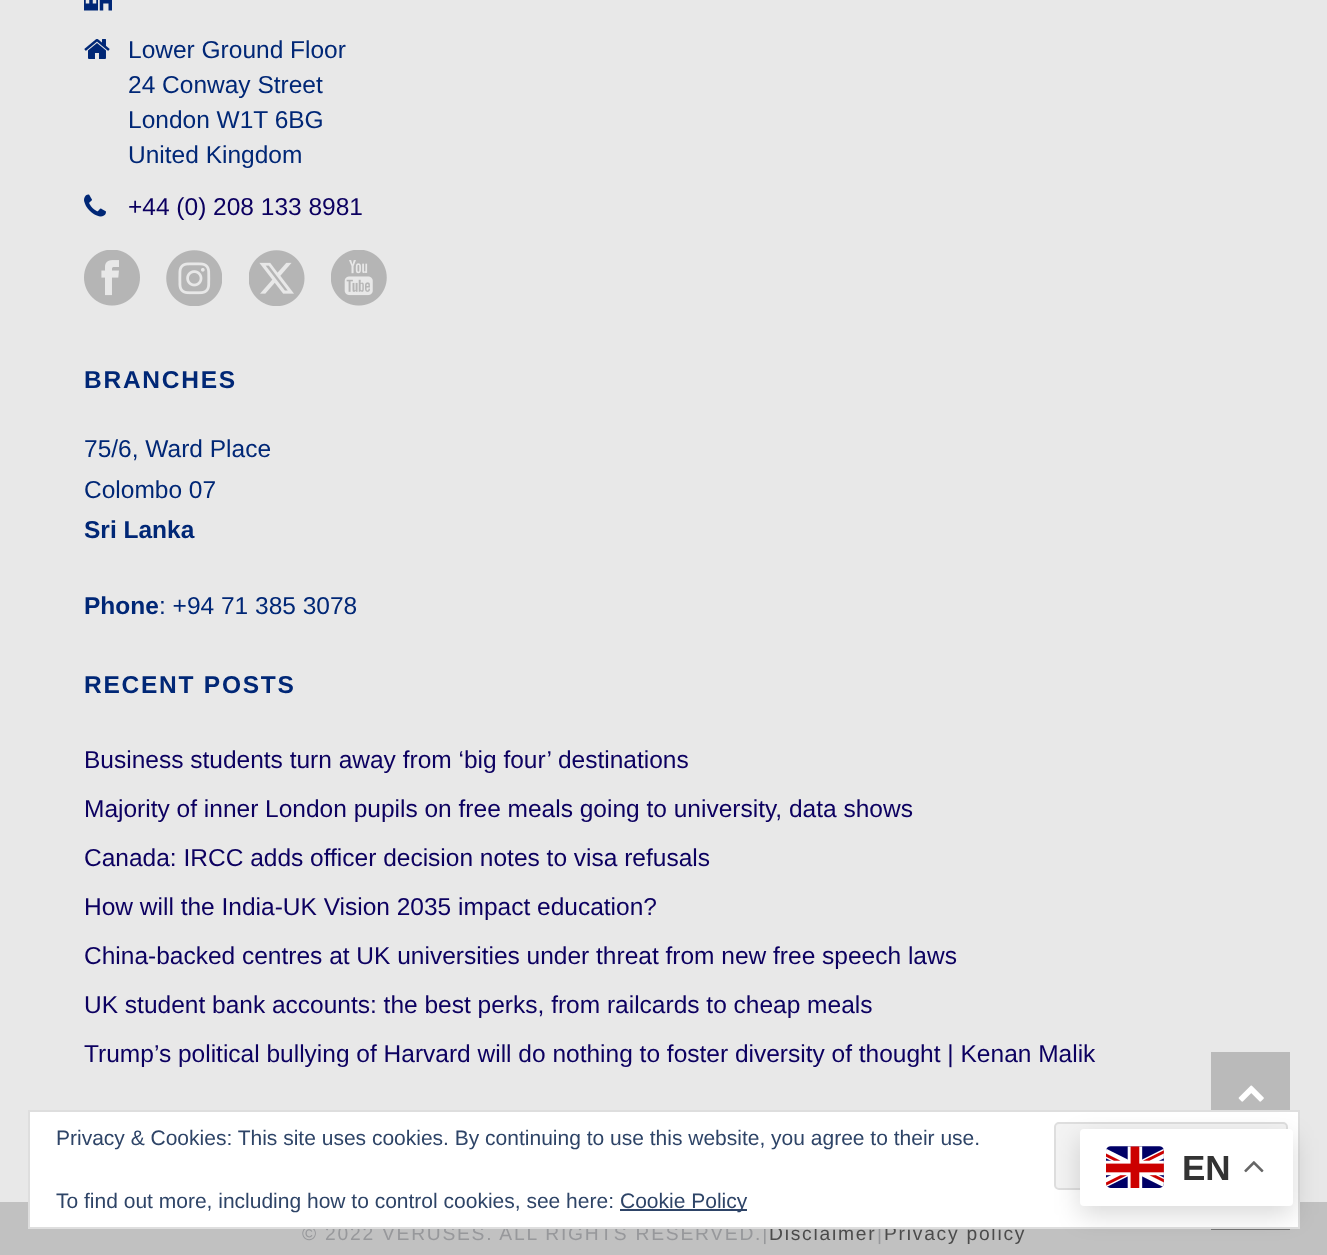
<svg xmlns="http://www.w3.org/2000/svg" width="1327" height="1255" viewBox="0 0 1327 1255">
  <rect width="100%" height="100%" fill="#e8e8e8"/>
  <image x="84" y="0" width="28" height="11" href="img/1.png"/>
  <image x="84" y="39" width="26" height="20" href="img/2.png"/>
  <image x="84" y="194" width="22" height="23" href="img/3.png"/>
  <image x="84" y="250" width="56" height="56" href="img/4.png"/>
  <image x="166" y="250" width="56" height="56" href="img/5.png"/>
  <image x="249" y="250" width="56" height="56" href="img/6.png"/>
  <image x="331" y="250" width="56" height="56" href="img/7.png"/>
  <path d="M0 1202h1327v53H0z" fill="#c1c1c1"/>
  <path d="M1211 1229h79v1H1211z" fill="#747474"/>
  <path d="M1211 1052h79v58H1211z" fill="#bababa"/>
  <image x="1238" y="1085" width="26" height="17" href="img/8.png"/>
  <g font-family="Liberation Sans" font-size="24.5" fill="#002776">
    <text x="128" y="58">Lower Ground Floor</text>
    <text x="128" y="93">24 Conway Street</text>
    <text x="128" y="128">London W1T 6BG</text>
    <text x="128" y="163">United Kingdom</text>
  </g>
  <text x="128" y="215" font-family="Liberation Sans" font-size="24.5" fill="#0c0060">+44 (0) 208 133 8981</text>
  <text x="84" y="388" font-family="Liberation Sans" font-size="24.5" font-weight="bold" letter-spacing="1.75" fill="#002776">BRANCHES</text>
  <g font-family="Liberation Sans" font-size="24.5" fill="#002776">
    <text x="84" y="457">75/6, Ward Place</text>
    <text x="84" y="498">Colombo 07</text>
  </g>
  <g font-family="Liberation Sans" font-size="24.5" font-weight="bold" fill="#002776">
    <text x="84" y="538">Sri Lanka</text>
    <text x="84" y="614">Phone</text>
  </g>
  <text x="159" y="614" font-family="Liberation Sans" font-size="24.5" fill="#002776">: +94 71 385 3078</text>
  <text x="84" y="693" font-family="Liberation Sans" font-size="24.5" font-weight="bold" letter-spacing="1.75" fill="#002776">RECENT POSTS</text>
  <g font-family="Liberation Sans" font-size="24.5" fill="#0c0060">
    <text x="84" y="768">Business students turn away from ‘big four’ destinations</text>
    <text x="84" y="817">Majority of inner London pupils on free meals going to university, data shows</text>
    <text x="84" y="866">Canada: IRCC adds officer decision notes to visa refusals</text>
    <text x="84" y="915">How will the India-UK Vision 2035 impact education?</text>
    <text x="84" y="964">China-backed centres at UK universities under threat from new free speech laws</text>
    <text x="84" y="1013">UK student bank accounts: the best perks, from railcards to cheap meals</text>
    <text x="84" y="1062">Trump’s political bullying of Harvard will do nothing to foster diversity of thought | Kenan Malik</text>
  </g>
  <text x="302" y="1240" font-family="Liberation Sans" font-size="19.25" letter-spacing="1.75" fill="#97989b">© 2022 VERUSES. ALL RIGHTS RESERVED.|</text>
  <text x="769" y="1240" font-family="Liberation Sans" font-size="19.25" letter-spacing="1.75" fill="#4b4b4b">Disclaimer</text>
  <text x="877" y="1240" font-family="Liberation Sans" font-size="19.25" letter-spacing="1.75" fill="#97989b">|</text>
  <text x="884" y="1240" font-family="Liberation Sans" font-size="19.25" letter-spacing="1.75" fill="#4b4b4b">Privacy policy</text>
  <path d="M29 1111h1270v117H29z" fill="#fff" stroke="#dedede" stroke-width="2"/>
  <text x="56" y="1145" font-family="Liberation Sans" font-size="21" fill="#2e4467">Privacy &amp; Cookies: This site uses cookies. By continuing to use this website, you agree to their use.</text>
  <rect x="1055" y="1123" width="232" height="66" rx="4" fill="#f3f3f3" stroke="#dedede" stroke-width="2"/>
  <text x="56" y="1208" font-family="Liberation Sans" font-size="21" fill="#2e4467">To find out more, including how to control cookies, see here:</text>
  <path d="M620 1209h127v2H620z" fill="#2e4467"/>
  <text x="620" y="1208" font-family="Liberation Sans" font-size="21" fill="#2e4467">Cookie Policy</text>
  <rect x="1080" y="1138" width="213" height="77" rx="4" fill="#00000026" filter="blur(13px)"/>
  <rect x="1080" y="1129" width="213" height="77" rx="4" fill="#fff"/>
  <image x="1106" y="1146" width="58" height="42" href="img/9.png"/>
  <text x="1182" y="1180" font-family="Liberation Sans" font-size="35" font-weight="bold" fill="#333">EN</text>
  <image x="1244" y="1161" width="20" height="12" href="img/10.png"/>
</svg>
